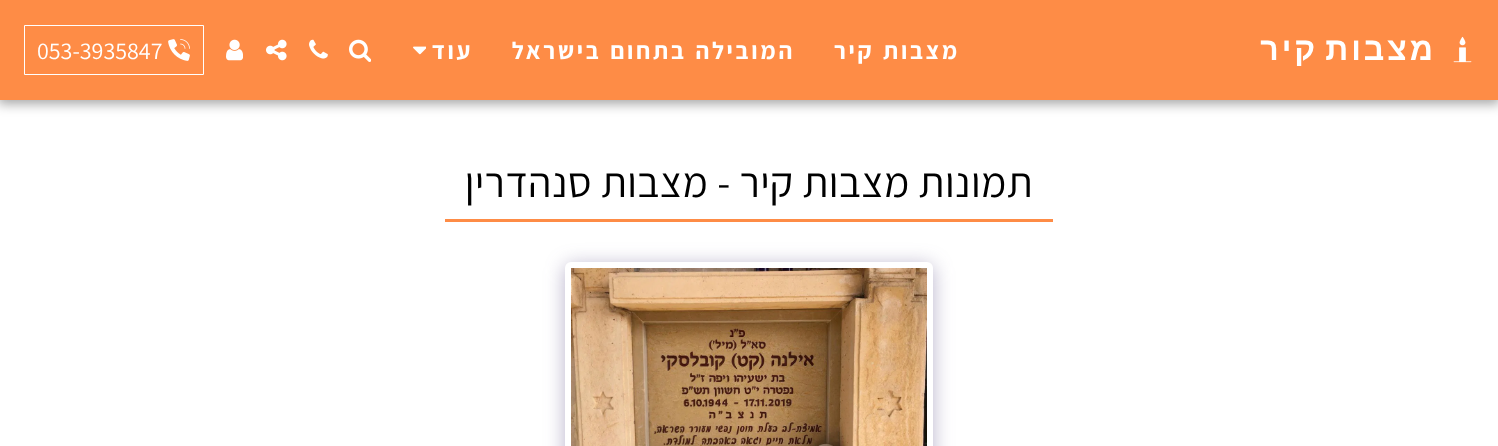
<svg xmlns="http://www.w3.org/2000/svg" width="1498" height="446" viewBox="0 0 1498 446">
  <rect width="100%" height="100%" fill="#fff"/>
  <path d="M-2 0h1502v104H-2z" fill="#00000059" filter="blur(6px)"/>
  <path d="M0 0h1498v100H0z" fill="#fe8c46"/>
  <image x="1453" y="36" width="19" height="27" href="img/1.png"/>
  <image x="413" y="46" width="13" height="9" href="img/2.png"/>
  <image x="349" y="39" width="22" height="23" href="img/3.png"/>
  <image x="309" y="39" width="19" height="20" href="img/4.png"/>
  <image x="266" y="39" width="21" height="22" href="img/5.png"/>
  <image x="226" y="39" width="17" height="22" href="img/6.png"/>
  <path d="M24.5 25.5h179v49H24.5z" fill="none" stroke="#fff"/>
  <image x="168" y="39" width="22" height="22" href="img/7.png"/>
  <path d="M445 219h608v3H445z" fill="#fe8c46"/>
  <rect x="565" y="265" width="368" height="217" rx="6" fill="#4d3f7a66" filter="blur(10px)"/>
  <rect x="565" y="262" width="368" height="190" rx="6" fill="#fff"/>
  <image x="571" y="268" width="356" height="178" href="img/8.png"/>
  <text x="1436" y="60" word-spacing="-5" font-family="Liberation Sans" font-size="32" font-weight="bold" letter-spacing="3" direction="rtl" fill="#fff">מצבות קיר</text>
  <g font-family="Assistant" font-size="24" font-weight="bold" letter-spacing="2.75" direction="rtl" fill="#fff">
    <text x="960" y="59" word-spacing="1">מצבות קיר</text>
    <text x="795" y="59" word-spacing="1">המובילה בתחום בישראל</text>
    <text x="473" y="59">עוד</text>
  </g>
  <text x="37" y="59" font-family="Assistant" font-size="24" fill="#fff">053-3935847</text>
  <text x="1033" y="197" font-family="Assistant" font-size="42.25" letter-spacing="0.5" direction="rtl" fill="#000">תמונות מצבות קיר - מצבות סנהדרין</text>
</svg>
